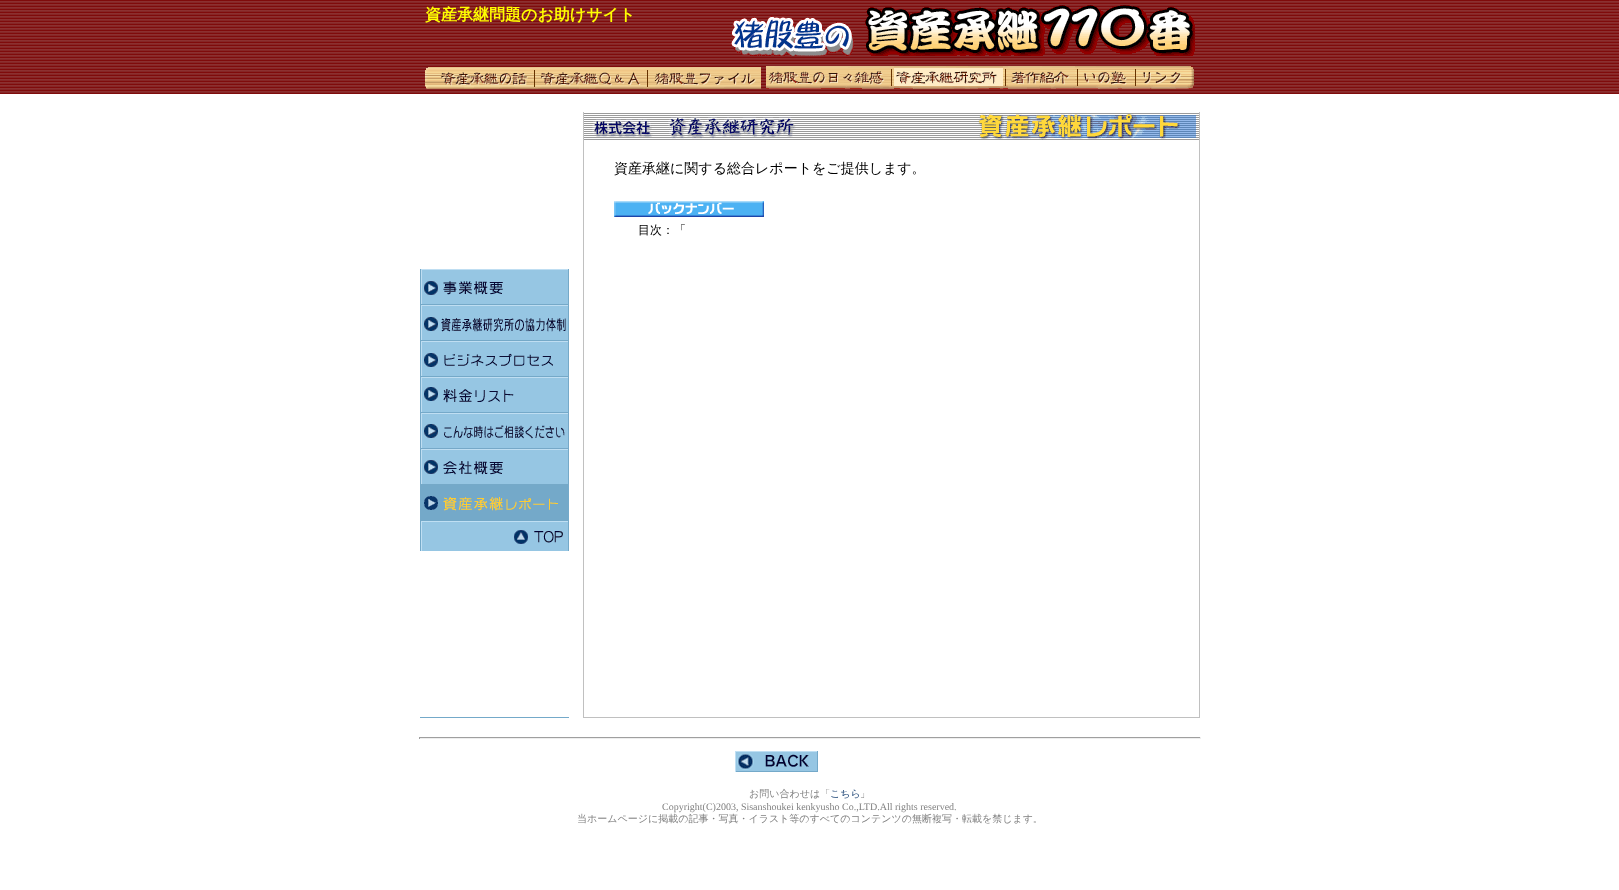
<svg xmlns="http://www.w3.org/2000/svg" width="1619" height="890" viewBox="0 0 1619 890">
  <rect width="100%" height="100%" fill="#fff"/>
  <image x="0" y="0" width="1619" height="94" href="img/1.png"/>
  <image x="731" y="16" width="123" height="40" href="img/2.png"/>
  <image x="865" y="5" width="330" height="51" href="img/3.png"/>
  <image x="425" y="67" width="107" height="22" href="img/4.png"/>
  <image x="532" y="67" width="5" height="22" href="img/5.png"/>
  <image x="537" y="67" width="108" height="22" href="img/6.png"/>
  <image x="645" y="67" width="5" height="22" href="img/7.png"/>
  <image x="650" y="67" width="111" height="22" href="img/8.png"/>
  <image x="766" y="66" width="123" height="23" href="img/9.png"/>
  <image x="889" y="66" width="5" height="23" href="img/10.png"/>
  <image x="894" y="66" width="109" height="23" href="img/11.png"/>
  <image x="1003" y="66" width="5" height="23" href="img/12.png"/>
  <image x="1008" y="66" width="67" height="23" href="img/13.png"/>
  <image x="1075" y="66" width="5" height="23" href="img/14.png"/>
  <image x="1080" y="66" width="53" height="23" href="img/15.png"/>
  <image x="1133" y="66" width="5" height="23" href="img/16.png"/>
  <image x="1138" y="66" width="56" height="23" href="img/17.png"/>
  <path d="M583 112h1v606H583z" fill="#c0c0c0"/>
  <image x="584" y="113" width="615" height="27" href="img/18.png"/>
  <image x="614" y="201" width="150" height="16" href="img/19.png"/>
  <path d="M1199 112h1v605H1199z" fill="#c0c0c0"/>
  <image x="420" y="269" width="149" height="36" href="img/20.png"/>
  <image x="420" y="305" width="149" height="36" href="img/21.png"/>
  <image x="420" y="341" width="149" height="36" href="img/22.png"/>
  <image x="420" y="377" width="149" height="36" href="img/23.png"/>
  <image x="420" y="413" width="149" height="36" href="img/24.png"/>
  <image x="420" y="449" width="149" height="36" href="img/25.png"/>
  <image x="420" y="485" width="149" height="36" href="img/26.png"/>
  <image x="420" y="521" width="149" height="30" href="img/27.png"/>
  <path d="M420 717h149v1H420z" fill="#74a9c9"/>
  <path d="M584 717h616v1H584z" fill="#c0c0c0"/>
  <path d="M419 737h782v1H419z" fill="#9f9f9f"/>
  <path d="M1200 737h1v2H1200z" fill="#eee"/>
  <path d="M419 738h782v1H419z" fill="#eee"/>
  <path d="M419 737h1v2H419z" fill="#9f9f9f"/>
  <image x="735" y="751" width="83" height="21" href="img/28.png"/>
  <text x="425" y="20" font-family="WenQuanYi Zen Hei" font-size="16" font-weight="bold" fill="#ff0">資産承継問題のお助けサイト</text>
  <text x="614" y="173" font-family="WenQuanYi Zen Hei" font-size="14" font-weight="500" fill="#000">資産承継に関する総合レポートをご提供します。</text>
  <text x="638" y="234" font-family="WenQuanYi Zen Hei" font-size="12" font-weight="500" fill="#000">目次：「</text>
  <text x="749" y="797" font-family="WenQuanYi Zen Hei" font-size="10" font-weight="500" fill="#808080">お問い合わせは「</text>
  <text x="830" y="797" font-family="WenQuanYi Zen Hei" font-size="10" font-weight="500" fill="#1a4273">こちら</text>
  <text x="860" y="797" font-family="WenQuanYi Zen Hei" font-size="10" font-weight="500" fill="#808080">」</text>
  <text x="662" y="810" font-family="Liberation Serif" font-size="10" fill="#808080">Copyright(C)2003, Sisanshoukei kenkyusho Co.,LTD.All rights reserved.</text>
  <text x="577" y="822" font-family="WenQuanYi Zen Hei" font-size="10" font-weight="500" fill="#808080">当ホームページに掲載の記事・写真・イラスト等のすべてのコンテンツの無断複写・転載を禁じます。</text>
</svg>
